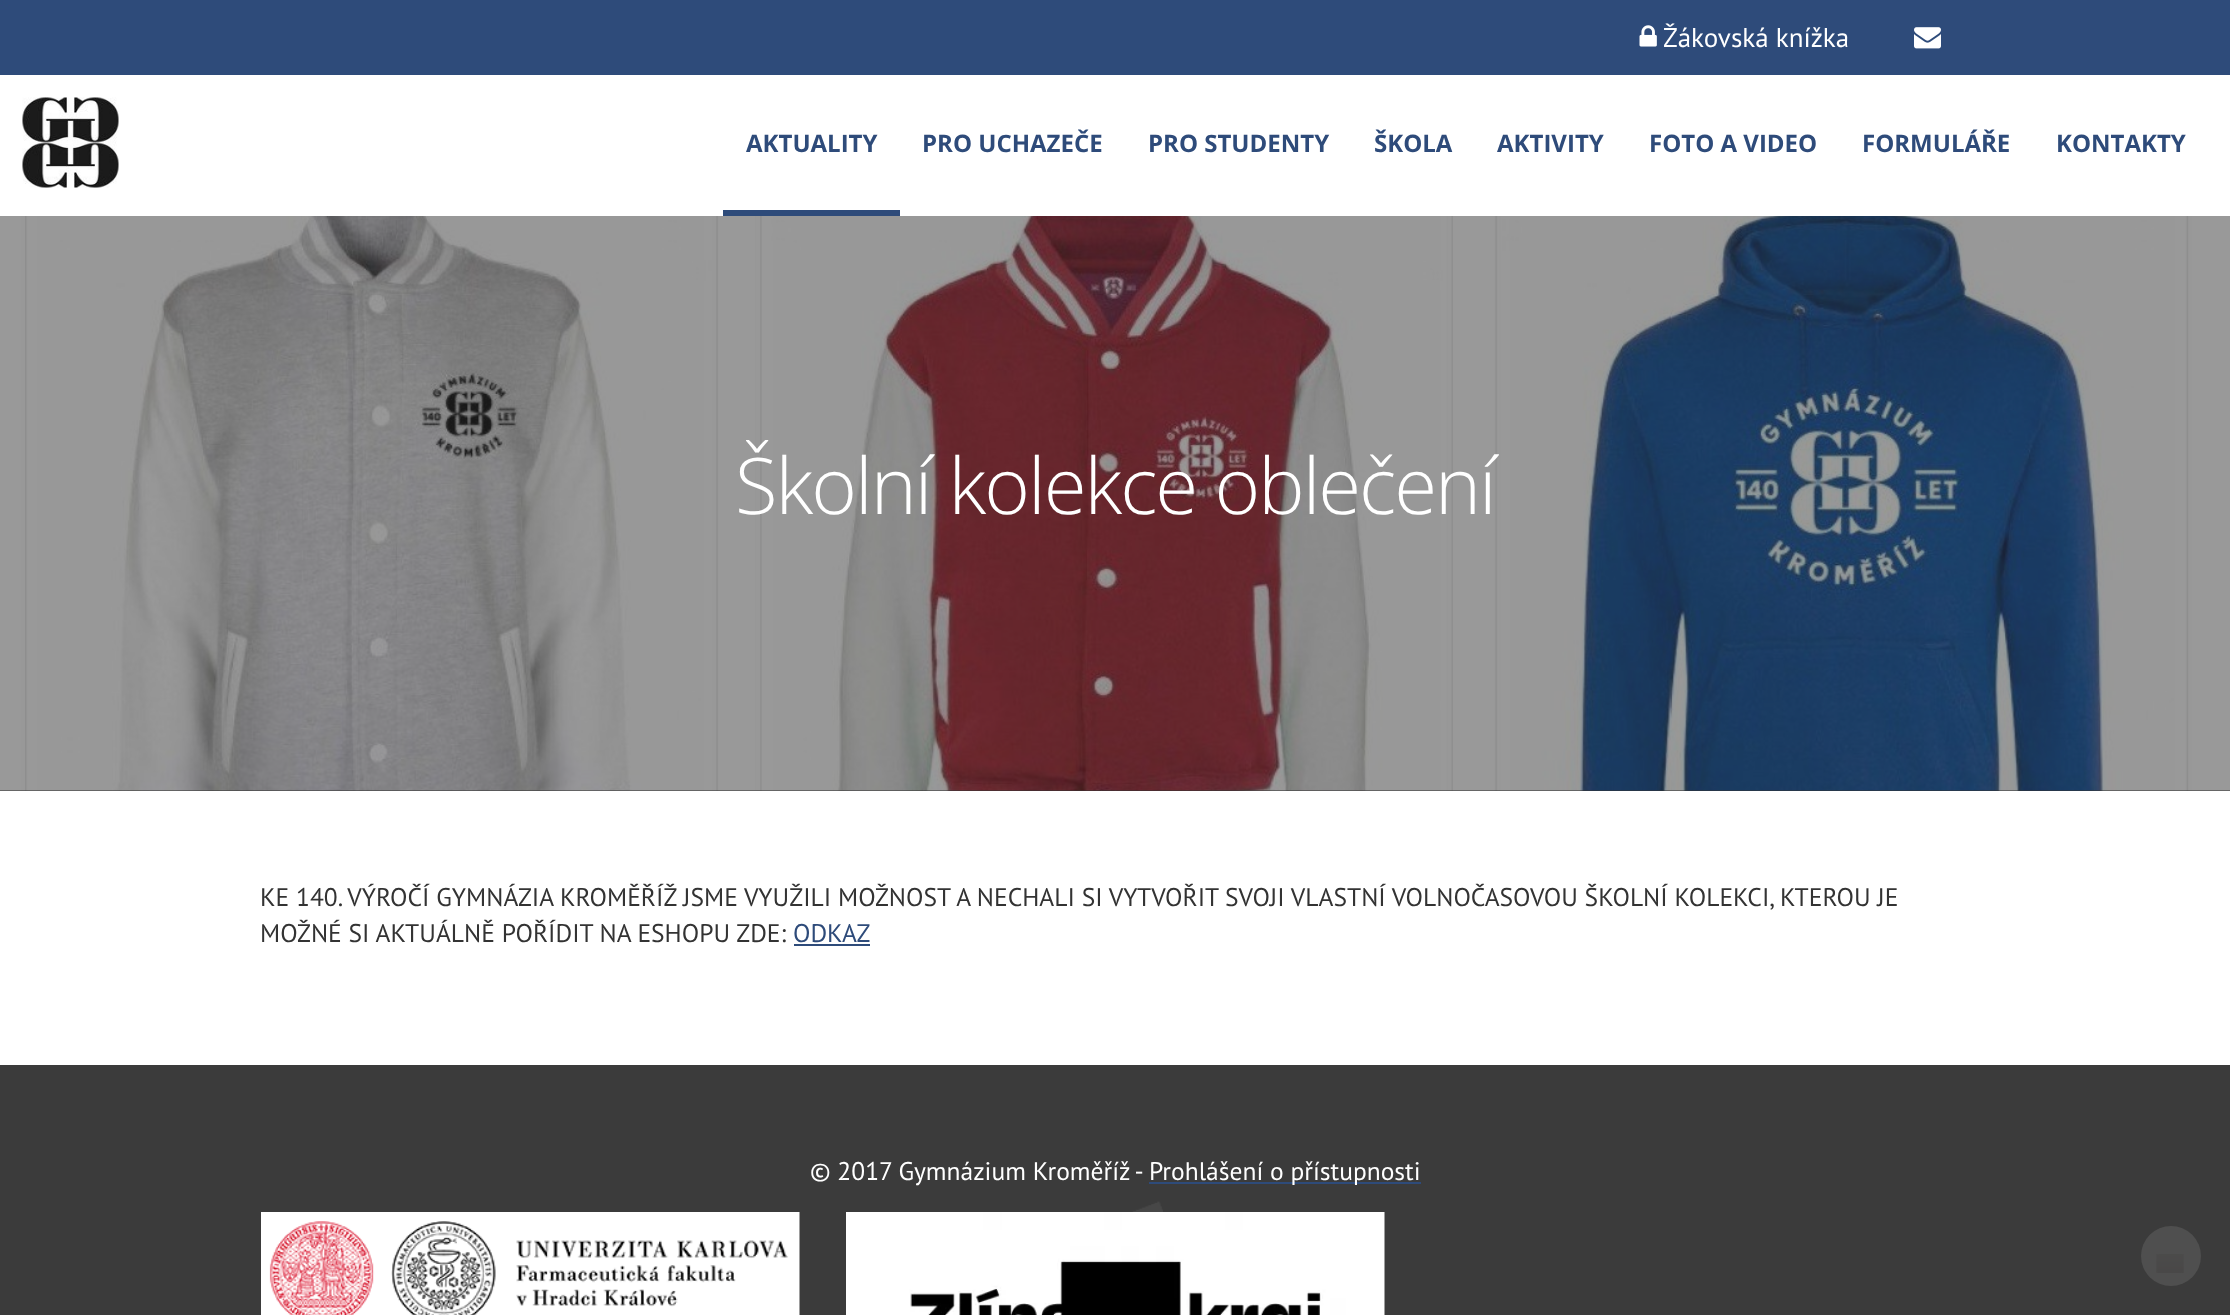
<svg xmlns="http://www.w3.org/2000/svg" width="2230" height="1315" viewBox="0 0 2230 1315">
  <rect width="100%" height="100%" fill="#2e4b7a"/>
  <image x="1639" y="25" width="18" height="22" href="img/1.png"/>
  <image x="1914" y="27" width="27" height="22" href="img/2.png"/>
  <path d="M0 75h2230v141H0z" fill="#fff"/>
  <image x="22" y="97" width="97" height="91" href="img/3.png"/>
  <path d="M723 210h177v6H723z" fill="#2e4b7a"/>
  <path d="M0 216h2230v575H0z" fill="#333"/>
  <image x="0" y="216" width="2230" height="575" href="img/4.png"/>
  <path d="M0 791h2230v274H0z" fill="#fff"/>
  <path d="M794 944h76v2H794z" fill="#2e4b7a"/>
  <path d="M0 1065h2230v250H0z" fill="#333"/>
  <image x="0" y="1065" width="2230" height="250" href="img/5.png"/>
  <path d="M1149 1182h272v2H1149z" fill="#2e4b7a"/>
  <image x="261" y="1212" width="539" height="103" href="img/6.png"/>
  <image x="846" y="1212" width="539" height="103" href="img/7.png"/>
  <circle cx="2171" cy="1256" r="30" fill="#4f4f4f"/>
  <image x="2156" y="1254" width="28" height="19" href="img/8.png"/>
  <text x="1663" y="47" font-family="PT Sans" font-size="27" fill="#fff">Žákovská knížka</text>
  <g font-family="Open Sans" font-size="24" font-weight="bold" fill="#2e4b7a">
    <text x="746" y="152">AKTUALITY</text>
    <text x="922" y="152">PRO UCHAZEČE</text>
    <text x="1148" y="152">PRO STUDENTY</text>
    <text x="1374" y="152">ŠKOLA</text>
    <text x="1497" y="152">AKTIVITY</text>
    <text x="1649" y="152">FOTO A VIDEO</text>
    <text x="1862" y="152">FORMULÁŘE</text>
    <text x="2056" y="152">KONTAKTY</text>
  </g>
  <text x="735" y="514" font-family="Open Sans" font-size="78" font-weight="300" letter-spacing="-2" fill="#fff">Školní kolekce oblečení</text>
  <g font-family="PT Sans" font-size="25.5" fill="#333">
    <text x="260" y="906">KE 140. VÝROČÍ GYMNÁZIA KROMĚŘÍŽ JSME VYUŽILI MOŽNOST A NECHALI SI VYTVOŘIT SVOJI VLASTNÍ VOLNOČASOVOU ŠKOLNÍ KOLEKCI, KTEROU JE</text>
    <text x="260" y="942">MOŽNÉ SI AKTUÁLNĚ POŘÍDIT NA ESHOPU ZDE:</text>
  </g>
  <text x="793" y="942" font-family="PT Sans" font-size="25.5" fill="#2e4b7a">ODKAZ</text>
  <g font-family="PT Sans" font-size="25.5" fill="#fff">
    <text x="810" y="1180">© 2017 Gymnázium Kroměříž -</text>
    <text x="1149" y="1180">Prohlášení o přístupnosti</text>
  </g>
</svg>
